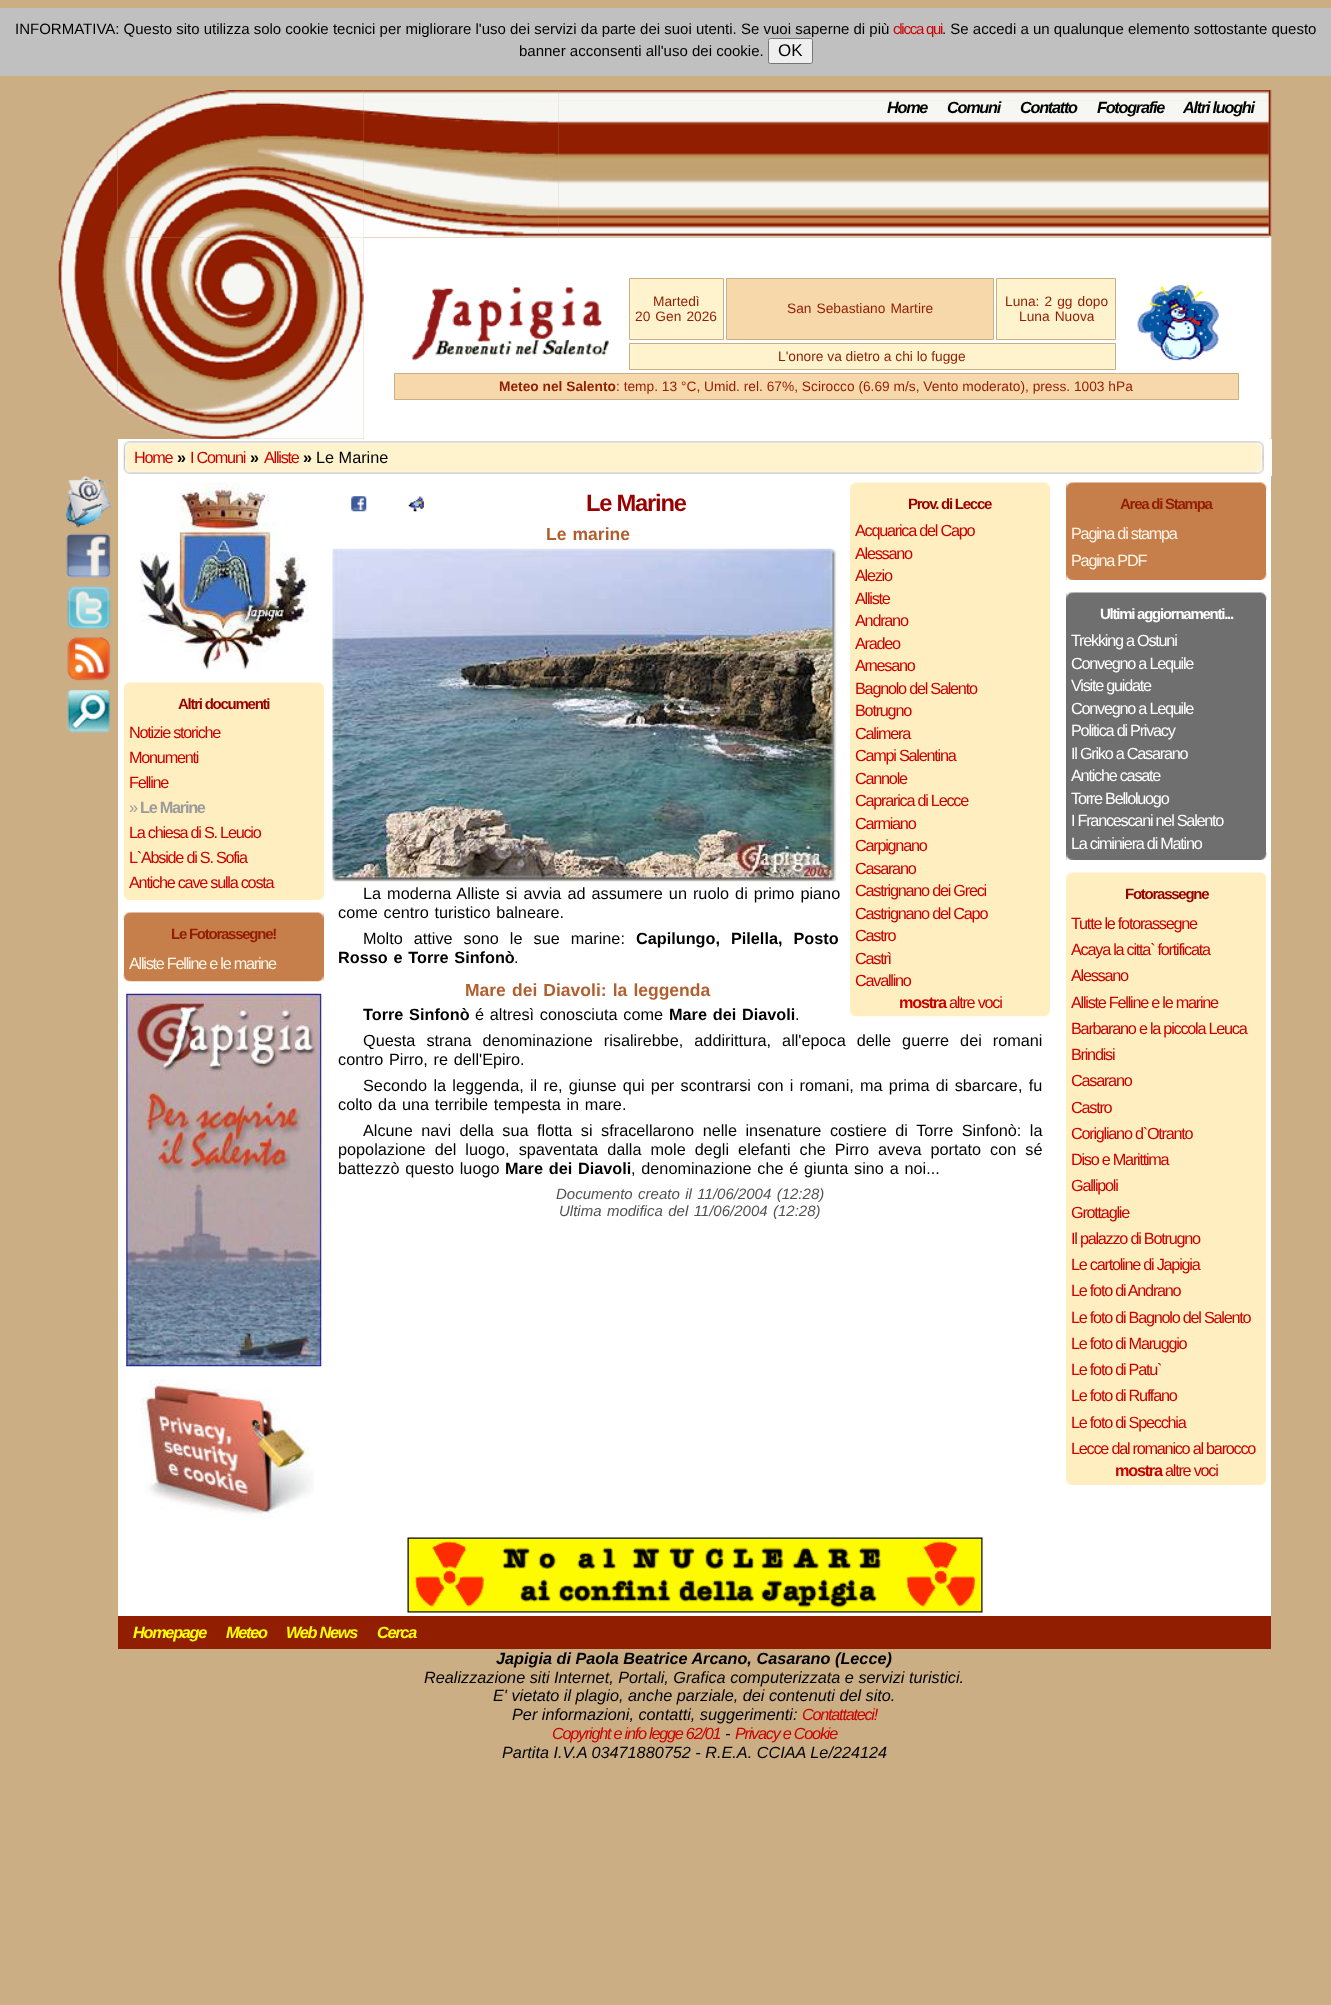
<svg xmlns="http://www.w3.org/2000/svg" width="1331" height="2005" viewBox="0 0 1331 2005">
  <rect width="100%" height="100%" fill="#cbae84"/>
  <path d="M0 8h1331v68H0z" fill="#c0c0c0"/>
  <rect x="768.5" y="38.5" width="44" height="25" rx="2" fill="#efefef" stroke="#767676"/>
  <image x="58" y="140" width="60" height="263" href="img/6.png"/>
  <image x="117" y="90" width="108" height="148" href="img/1.png"/>
  <image x="363" y="90" width="196" height="148" href="img/3.png"/>
  <image x="225" y="90" width="139" height="148" href="img/2.png"/>
  <image x="558" y="90" width="711" height="34" href="img/4.png"/>
  <image x="558" y="123" width="711" height="115" href="img/7.png"/>
  <path d="M364 238h905v201H364z" fill="#fff"/>
  <image x="1268" y="90" width="4" height="349" href="img/5.png"/>
  <image x="117" y="237" width="108" height="202" href="img/8.png"/>
  <image x="225" y="237" width="139" height="202" href="img/9.png"/>
  <image x="412" y="287" width="197" height="74" href="img/10.png"/>
  <path d="M629.5 278.5h94v61H629.5z" fill="#fff3cd" stroke="#cbae84"/>
  <path d="M726.5 278.5h267v61H726.5z" fill="#f7d8aa" stroke="#cbae84"/>
  <path d="M996.5 278.5h119v61H996.5z" fill="#fff3cd" stroke="#cbae84"/>
  <image x="1137" y="284" width="82" height="77" href="img/11.png"/>
  <path d="M629.5 343.5h486v26H629.5z" fill="#fff3cd" stroke="#cbae84"/>
  <path d="M394.5 373.5h844v26H394.5z" fill="#f7d8aa" stroke="#cbae84"/>
  <path d="M118 439h1154v37H118z" fill="#fff"/>
  <image x="123" y="441" width="7" height="33" href="img/12.png"/>
  <image x="130" y="441" width="1128" height="33" href="img/13.png"/>
  <image x="1257" y="441" width="7" height="33" href="img/14.png"/>
  <image x="66" y="476" width="46" height="52" href="img/15.png"/>
  <image x="66" y="533" width="45" height="45" href="img/16.png"/>
  <image x="67" y="586" width="44" height="43" href="img/17.png"/>
  <image x="67" y="637" width="44" height="44" href="img/18.png"/>
  <image x="66" y="689" width="45" height="44" href="img/19.png"/>
  <path d="M118 476h1153v1140H118z" fill="#fff"/>
  <image x="140" y="482" width="169" height="188" href="img/20.png"/>
  <path d="M124 683h200v217H124z" fill="#ffeebf"/>
  <image x="123" y="892" width="201" height="8" href="img/21.png"/>
  <image x="123" y="682" width="201" height="8" href="img/22.png"/>
  <path d="M124 913h200v68H124z" fill="#c67e4a"/>
  <image x="123" y="973" width="201" height="9" href="img/23.png"/>
  <image x="123" y="912" width="201" height="8" href="img/24.png"/>
  <image x="126" y="993" width="196" height="374" href="img/25.png"/>
  <image x="140" y="1379" width="174" height="140" href="img/26.png"/>
  <image x="351" y="496" width="16" height="16" href="img/27.png"/>
  <image x="408" y="496" width="16" height="16" href="img/28.png"/>
  <image x="332" y="548" width="505" height="334" href="img/29.png"/>
  <path d="M850 488h200v522H850z" fill="#ffeebf"/>
  <image x="850" y="1010" width="200" height="7" href="img/30.png"/>
  <image x="850" y="482" width="200" height="6" href="img/31.png"/>
  <path d="M1066 483h200v97H1066z" fill="#c67e4a"/>
  <image x="1066" y="572" width="201" height="8" href="img/32.png"/>
  <image x="1066" y="482" width="201" height="8" href="img/33.png"/>
  <path d="M1066 593h200v267H1066z" fill="#6f6f6f"/>
  <image x="1066" y="852" width="201" height="8" href="img/34.png"/>
  <image x="1066" y="592" width="201" height="8" href="img/35.png"/>
  <path d="M1066 873h200v612H1066z" fill="#ffeebf"/>
  <image x="1066" y="1477" width="201" height="8" href="img/36.png"/>
  <image x="1066" y="872" width="201" height="8" href="img/37.png"/>
  <image x="407" y="1537" width="576" height="76" href="img/38.png"/>
  <path d="M118 1616h1153v33H118z" fill="#921e02"/>
  <text x="15" y="34" font-family="Liberation Sans" font-size="15" fill="#000">INFORMATIVA: Questo sito utilizza solo cookie tecnici per migliorare l'uso dei servizi da parte dei suoi utenti. Se vuoi saperne di più</text>
  <text x="893" y="34" font-family="Liberation Sans" font-size="15" letter-spacing="-1.25" fill="#cb0000">clicca qui</text>
  <g font-family="Liberation Sans" font-size="15" fill="#000">
    <text x="942" y="34">. Se accedi a un qualunque elemento sottostante questo</text>
    <text x="519" y="56">banner acconsenti all'uso dei cookie.</text>
  </g>
  <text x="778" y="56" font-family="Liberation Sans" font-size="17" fill="#000">OK</text>
  <g font-family="Liberation Sans" font-size="16.25" font-weight="bold" font-style="italic" letter-spacing="-1.25" fill="#000">
    <text x="887" y="113">Home</text>
    <text x="947" y="113">Comuni</text>
    <text x="1020" y="113">Contatto</text>
    <text x="1097" y="113">Fotografie</text>
    <text x="1183" y="113">Altri luoghi</text>
  </g>
  <g font-family="Liberation Sans" font-size="13.75" fill="#921e02">
    <text x="653" y="306">Martedì</text>
    <text x="635" y="321" word-spacing="1.25">20 Gen 2026</text>
    <text x="787" y="313" word-spacing="1.25">San Sebastiano Martire</text>
    <text x="1005" y="306" word-spacing="1.25">Luna: 2 gg dopo</text>
    <text x="1019" y="321" word-spacing="1.25">Luna Nuova</text>
    <text x="778" y="361">L'onore va dietro a chi lo fugge</text>
  </g>
  <text x="499" y="391" font-family="Liberation Sans" font-size="13.75" font-weight="bold" fill="#921e02">Meteo nel Salento</text>
  <text x="616" y="391" font-family="Liberation Sans" font-size="13.75" fill="#921e02">: temp. 13 °C, Umid. rel. 67%, Scirocco (6.69 m/s, Vento moderato), press. 1003 hPa</text>
  <text x="134" y="463" font-family="Liberation Sans" font-size="16.25" letter-spacing="-1.25" fill="#cb0000">Home</text>
  <text x="177" y="463" font-family="Liberation Sans" font-size="16.25" font-weight="bold" fill="#000">»</text>
  <text x="190" y="463" font-family="Liberation Sans" font-size="16.25" letter-spacing="-1.25" fill="#cb0000">I Comuni</text>
  <text x="250" y="463" font-family="Liberation Sans" font-size="16.25" font-weight="bold" fill="#000">»</text>
  <text x="264" y="463" font-family="Liberation Sans" font-size="16.25" letter-spacing="-1.25" fill="#cb0000">Alliste</text>
  <text x="303" y="463" font-family="Liberation Sans" font-size="16.25" font-weight="bold" fill="#000">»</text>
  <text x="316" y="463" font-family="Liberation Sans" font-size="16.25" fill="#000">Le Marine</text>
  <text x="178" y="709" font-family="Liberation Sans" font-size="15" font-weight="bold" letter-spacing="-1.25" fill="#900">Altri documenti</text>
  <g font-family="Liberation Sans" font-size="16.25" letter-spacing="-1.25" fill="#cb0000">
    <text x="129" y="738">Notizie storiche</text>
    <text x="129" y="763">Monumenti</text>
    <text x="129" y="788">Felline</text>
  </g>
  <text x="129" y="813" font-family="Liberation Sans" font-size="16.25" letter-spacing="-1.25" fill="#9b9b9b">»</text>
  <text x="140" y="813" font-family="Liberation Sans" font-size="16.25" font-weight="bold" letter-spacing="-1.25" fill="#9b9b9b">Le Marine</text>
  <g font-family="Liberation Sans" font-size="16.25" letter-spacing="-1.25" fill="#cb0000">
    <text x="129" y="838">La chiesa di S. Leucio</text>
    <text x="129" y="863">L`Abside di S. Sofia</text>
    <text x="129" y="888">Antiche cave sulla costa</text>
  </g>
  <text x="171" y="939" font-family="Liberation Sans" font-size="15" font-weight="bold" letter-spacing="-1.25" fill="#921e02">Le Fotorassegne!</text>
  <text x="129" y="969" font-family="Liberation Sans" font-size="16.25" letter-spacing="-1.25" fill="#fff5e7">Alliste Felline e le marine</text>
  <text x="586" y="511" font-family="Liberation Sans" font-size="23.75" font-weight="bold" letter-spacing="-1.25" fill="#900">Le Marine</text>
  <text x="546" y="540" word-spacing="1.25" font-family="Liberation Sans" font-size="17.5" font-weight="bold" fill="#b25f2f">Le marine</text>
  <g font-family="Liberation Sans" font-size="16.25" fill="#000">
    <text x="363" y="899" word-spacing="1.5">La moderna Alliste si avvia ad assumere un ruolo di primo piano</text>
    <text x="338" y="918" word-spacing="1.25">come centro turistico balneare.</text>
    <text x="363" y="944" word-spacing="6.5">Molto attive sono le sue marine:</text>
  </g>
  <g font-family="Liberation Sans" font-size="16.25" font-weight="bold" fill="#000">
    <text x="636" y="944" word-spacing="6.5">Capilungo, Pilella, Posto</text>
    <text x="338" y="963" word-spacing="1.25">Rosso e Torre Sinfonò</text>
  </g>
  <text x="514" y="963" font-family="Liberation Sans" font-size="16.25" fill="#000">.</text>
  <text x="465" y="996" word-spacing="1.25" font-family="Liberation Sans" font-size="17.5" font-weight="bold" fill="#b25f2f">Mare dei Diavoli: la leggenda</text>
  <text x="363" y="1020" word-spacing="1.25" font-family="Liberation Sans" font-size="16.25" font-weight="bold" fill="#000">Torre Sinfonò</text>
  <text x="475" y="1020" word-spacing="1.25" font-family="Liberation Sans" font-size="16.25" fill="#000">é altresì conosciuta come</text>
  <text x="669" y="1020" word-spacing="1.25" font-family="Liberation Sans" font-size="16.25" font-weight="bold" fill="#000">Mare dei Diavoli</text>
  <g font-family="Liberation Sans" font-size="16.25" fill="#000">
    <text x="795" y="1020">.</text>
    <text x="363" y="1046" word-spacing="6.5">Questa strana denominazione risalirebbe, addirittura, all'epoca delle guerre dei romani</text>
    <text x="338" y="1065" word-spacing="1.25">contro Pirro, re dell'Epiro.</text>
    <text x="363" y="1091" word-spacing="1.75">Secondo la leggenda, il re, giunse qui per scontrarsi con i romani, ma prima di sbarcare, fu</text>
    <text x="338" y="1110" word-spacing="1.25">colto da una terribile tempesta in mare.</text>
    <text x="363" y="1136" word-spacing="4">Alcune navi della sua flotta si sfracellarono nelle insenature costiere di Torre Sinfonò: la</text>
    <text x="338" y="1155" word-spacing="4.5">popolazione del luogo, spaventata dalla mole degli elefanti che Pirro aveva portato con sé</text>
    <text x="338" y="1174" word-spacing="1.25">battezzò questo luogo</text>
  </g>
  <text x="505" y="1174" word-spacing="1.25" font-family="Liberation Sans" font-size="16.25" font-weight="bold" fill="#000">Mare dei Diavoli</text>
  <text x="631" y="1174" word-spacing="1.25" font-family="Liberation Sans" font-size="16.25" fill="#000">, denominazione che é giunta sino a noi...</text>
  <text x="908" y="509" font-family="Liberation Sans" font-size="15" font-weight="bold" letter-spacing="-1.25" fill="#900">Prov. di Lecce</text>
  <g font-family="Liberation Sans" font-size="16.25" letter-spacing="-1.25" fill="#cb0000">
    <text x="855" y="536">Acquarica del Capo</text>
    <text x="855" y="559">Alessano</text>
    <text x="855" y="581">Alezio</text>
    <text x="855" y="604">Alliste</text>
    <text x="855" y="626">Andrano</text>
    <text x="855" y="649">Aradeo</text>
    <text x="855" y="671">Arnesano</text>
    <text x="855" y="694">Bagnolo del Salento</text>
    <text x="855" y="716">Botrugno</text>
    <text x="855" y="739">Calimera</text>
    <text x="855" y="761">Campi Salentina</text>
    <text x="855" y="784">Cannole</text>
    <text x="855" y="806">Caprarica di Lecce</text>
    <text x="855" y="829">Carmiano</text>
    <text x="855" y="851">Carpignano</text>
    <text x="855" y="874">Casarano</text>
    <text x="855" y="896">Castrignano dei Greci</text>
    <text x="855" y="919">Castrignano del Capo</text>
    <text x="855" y="941">Castro</text>
    <text x="855" y="964">Castrì</text>
    <text x="855" y="986">Cavallino</text>
  </g>
  <text x="899" y="1008" font-family="Liberation Sans" font-size="16.25" font-weight="bold" letter-spacing="-1.25" fill="#cb0000">mostra</text>
  <text x="949" y="1008" font-family="Liberation Sans" font-size="16.25" letter-spacing="-1.25" fill="#cb0000">altre voci</text>
  <g font-family="Liberation Sans" font-size="15" font-style="italic" fill="#525252">
    <text x="556" y="1199" word-spacing="1.25">Documento creato il 11/06/2004 (12:28)</text>
    <text x="559" y="1216" word-spacing="1.25">Ultima modifica del 11/06/2004 (12:28)</text>
  </g>
  <text x="1120" y="509" font-family="Liberation Sans" font-size="15" font-weight="bold" letter-spacing="-1.25" fill="#921e02">Area di Stampa</text>
  <g font-family="Liberation Sans" font-size="16.25" letter-spacing="-1.25" fill="#fff5e7">
    <text x="1071" y="539">Pagina di stampa</text>
    <text x="1071" y="566">Pagina PDF</text>
  </g>
  <text x="1100" y="619" font-family="Liberation Sans" font-size="15" font-weight="bold" letter-spacing="-1.25" fill="#fff">Ultimi aggiornamenti...</text>
  <g font-family="Liberation Sans" font-size="16.25" letter-spacing="-1.25" fill="#fff">
    <text x="1071" y="646">Trekking a Ostuni</text>
    <text x="1071" y="669">Convegno a Lequile</text>
    <text x="1071" y="691">Visite guidate</text>
    <text x="1071" y="714">Convegno a Lequile</text>
    <text x="1071" y="736">Politica di Privacy</text>
    <text x="1071" y="759">Il Griko a Casarano</text>
    <text x="1071" y="781">Antiche casate</text>
    <text x="1071" y="804">Torre Belloluogo</text>
    <text x="1071" y="826">I Francescani nel Salento</text>
    <text x="1071" y="849">La ciminiera di Matino</text>
  </g>
  <text x="1125" y="899" font-family="Liberation Sans" font-size="15" font-weight="bold" letter-spacing="-1.25" fill="#900">Fotorassegne</text>
  <g font-family="Liberation Sans" font-size="16.25" letter-spacing="-1.25" fill="#cb0000">
    <text x="1071" y="929">Tutte le fotorassegne</text>
    <text x="1071" y="955">Acaya la citta` fortificata</text>
    <text x="1071" y="981">Alessano</text>
    <text x="1071" y="1008">Alliste Felline e le marine</text>
    <text x="1071" y="1034">Barbarano e la piccola Leuca</text>
    <text x="1071" y="1060">Brindisi</text>
    <text x="1071" y="1086">Casarano</text>
    <text x="1071" y="1113">Castro</text>
    <text x="1071" y="1139">Corigliano d`Otranto</text>
    <text x="1071" y="1165">Diso e Marittima</text>
    <text x="1071" y="1191">Gallipoli</text>
    <text x="1071" y="1218">Grottaglie</text>
    <text x="1071" y="1244">Il palazzo di Botrugno</text>
    <text x="1071" y="1270">Le cartoline di Japigia</text>
    <text x="1071" y="1296">Le foto di Andrano</text>
    <text x="1071" y="1323">Le foto di Bagnolo del Salento</text>
    <text x="1071" y="1349">Le foto di Maruggio</text>
    <text x="1071" y="1375">Le foto di Patu`</text>
    <text x="1071" y="1401">Le foto di Ruffano</text>
    <text x="1071" y="1428">Le foto di Specchia</text>
    <text x="1071" y="1454">Lecce dal romanico al barocco</text>
  </g>
  <text x="1115" y="1476" font-family="Liberation Sans" font-size="16.25" font-weight="bold" letter-spacing="-1.25" fill="#cb0000">mostra</text>
  <text x="1165" y="1476" font-family="Liberation Sans" font-size="16.25" letter-spacing="-1.25" fill="#cb0000">altre voci</text>
  <g font-family="Liberation Sans" font-size="16.25" font-weight="bold" font-style="italic" letter-spacing="-1.25" fill="#ff0">
    <text x="133" y="1638">Homepage</text>
    <text x="226" y="1638">Meteo</text>
    <text x="286" y="1638">Web News</text>
    <text x="377" y="1638">Cerca</text>
  </g>
  <text x="496" y="1664" font-family="Liberation Sans" font-size="16.25" font-weight="bold" font-style="italic" fill="#000">Japigia di Paola Beatrice Arcano, Casarano (Lecce)</text>
  <g font-family="Liberation Sans" font-size="16.25" font-style="italic" fill="#000">
    <text x="424" y="1683">Realizzazione siti Internet, Portali, Grafica computerizzata e servizi turistici.</text>
    <text x="493" y="1701">E' vietato il plagio, anche parziale, dei contenuti del sito.</text>
    <text x="512" y="1720">Per informazioni, contatti, suggerimenti:</text>
  </g>
  <g font-family="Liberation Sans" font-size="16.25" font-style="italic" letter-spacing="-1.25" fill="#cb0000">
    <text x="802" y="1720">Contattateci!</text>
    <text x="552" y="1739">Copyright e info legge 62/01</text>
  </g>
  <text x="725" y="1739" font-family="Liberation Sans" font-size="16.25" font-style="italic" fill="#000">-</text>
  <text x="735" y="1739" font-family="Liberation Sans" font-size="16.25" font-style="italic" letter-spacing="-1.25" fill="#cb0000">Privacy e Cookie</text>
  <text x="502" y="1758" font-family="Liberation Sans" font-size="16.25" font-style="italic" fill="#000">Partita I.V.A 03471880752 - R.E.A. CCIAA Le/224124</text>
</svg>
